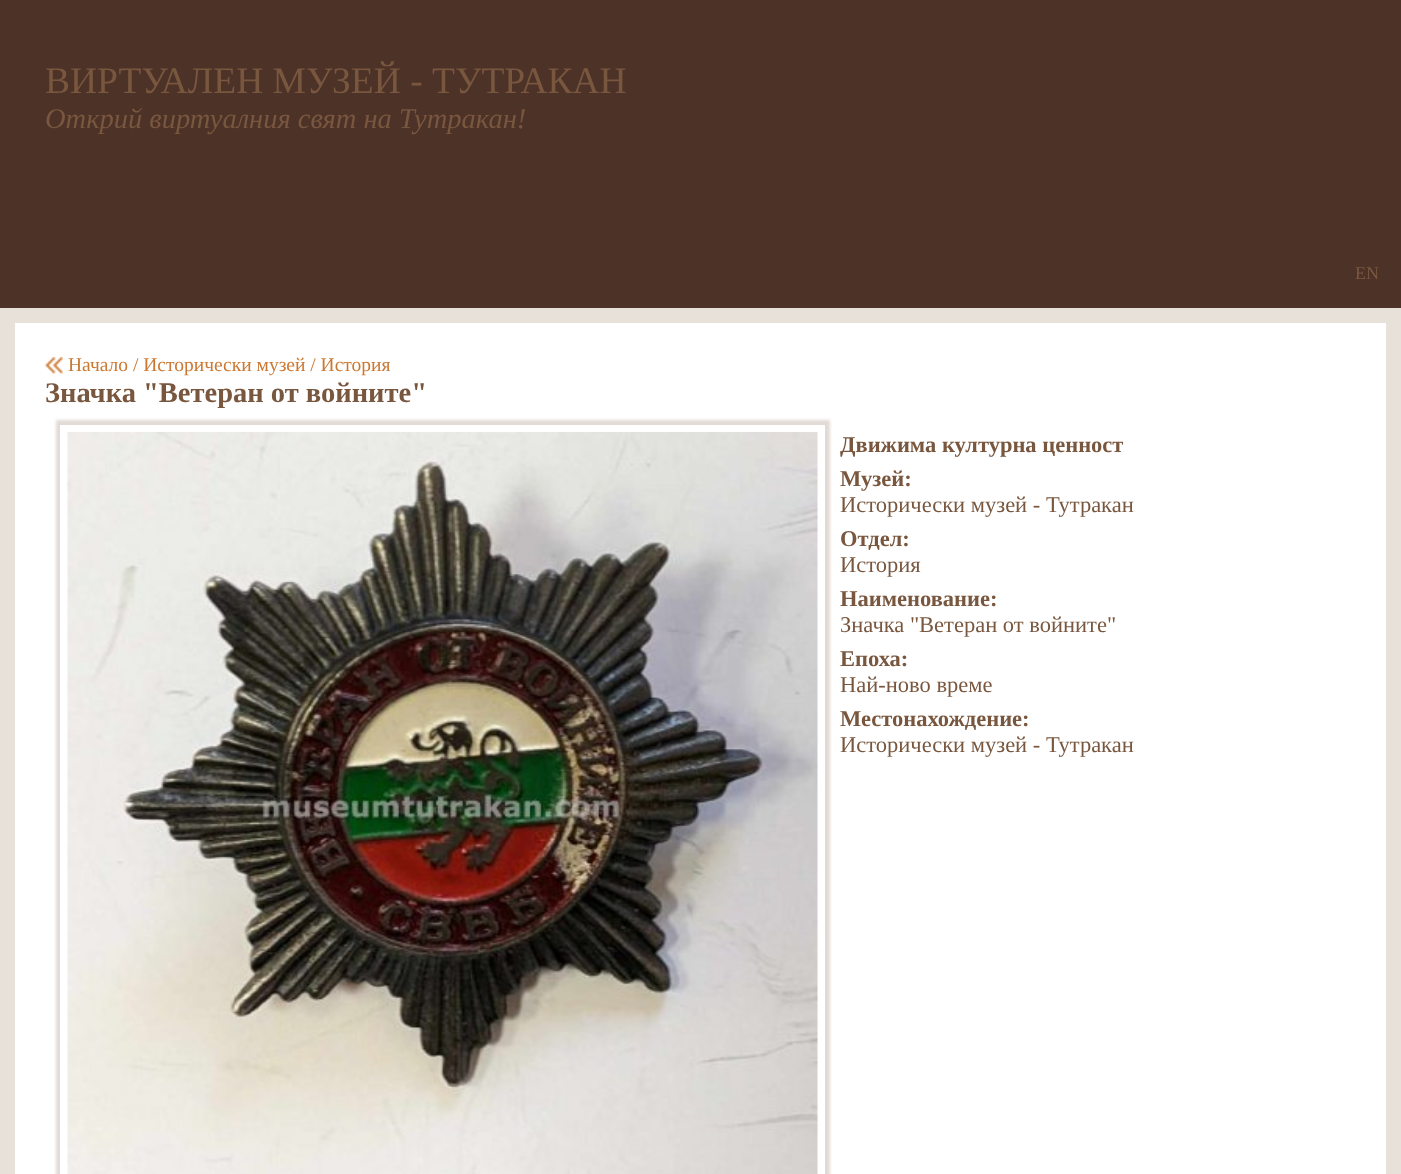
<svg xmlns="http://www.w3.org/2000/svg" width="1401" height="1174" viewBox="0 0 1401 1174">
  <defs>
    <clipPath id="clip1"><path d="M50 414H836V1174H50ZM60 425H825V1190H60Z" clip-rule="evenodd"/></clipPath>
  </defs>
  <rect width="100%" height="100%" fill="#fff"/>
  <path d="M0 0h1401v308H0z" fill="#4d3228"/>
  <path d="M7.5 315.5h1386v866H7.5z" fill="none" stroke="#e8e1d9" stroke-width="15"/>
  <image x="45" y="357" width="18" height="17" href="img/1.png"/>
  <g clip-path="url(#clip1)">
    <path d="M56 420h774v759H56z" fill="#7c574238" filter="blur(1.5px)"/>
  </g>
  <image x="67" y="432" width="751" height="742" href="img/2.png"/>
  <text x="45" y="93" font-family="Liberation Serif" font-size="37.5" fill="#79573f">ВИРТУАЛЕН МУЗЕЙ - ТУТРАКАН</text>
  <text x="45" y="128" font-family="Liberation Serif" font-size="28.5" font-style="italic" fill="#79573f">Открий виртуалния свят на Тутракан!</text>
  <text x="1355" y="279" font-family="Liberation Serif" font-size="18" fill="#79573f">EN</text>
  <text x="68" y="371" font-family="Liberation Serif" font-size="19.5" fill="#cb7932">Начало / Исторически музей / История</text>
  <text x="45" y="402" font-family="Liberation Serif" font-size="28.5" font-weight="bold" fill="#79573f">Значка "Ветеран от войните"</text>
  <g font-family="Liberation Serif" font-size="22.5" font-weight="bold" fill="#79573f">
    <text x="840" y="452">Движима културна ценност</text>
    <text x="840" y="486">Музей:</text>
  </g>
  <text x="840" y="512" font-family="Liberation Serif" font-size="22.5" fill="#79573f">Исторически музей - Тутракан</text>
  <text x="840" y="546" font-family="Liberation Serif" font-size="22.5" font-weight="bold" fill="#79573f">Отдел:</text>
  <text x="840" y="572" font-family="Liberation Serif" font-size="22.5" fill="#79573f">История</text>
  <text x="840" y="606" font-family="Liberation Serif" font-size="22.5" font-weight="bold" fill="#79573f">Наименование:</text>
  <text x="840" y="632" font-family="Liberation Serif" font-size="22.5" fill="#79573f">Значка "Ветеран от войните"</text>
  <text x="840" y="666" font-family="Liberation Serif" font-size="22.5" font-weight="bold" fill="#79573f">Епоха:</text>
  <text x="840" y="692" font-family="Liberation Serif" font-size="22.5" fill="#79573f">Най-ново време</text>
  <text x="840" y="726" font-family="Liberation Serif" font-size="22.5" font-weight="bold" fill="#79573f">Местонахождение:</text>
  <text x="840" y="752" font-family="Liberation Serif" font-size="22.5" fill="#79573f">Исторически музей - Тутракан</text>
</svg>
